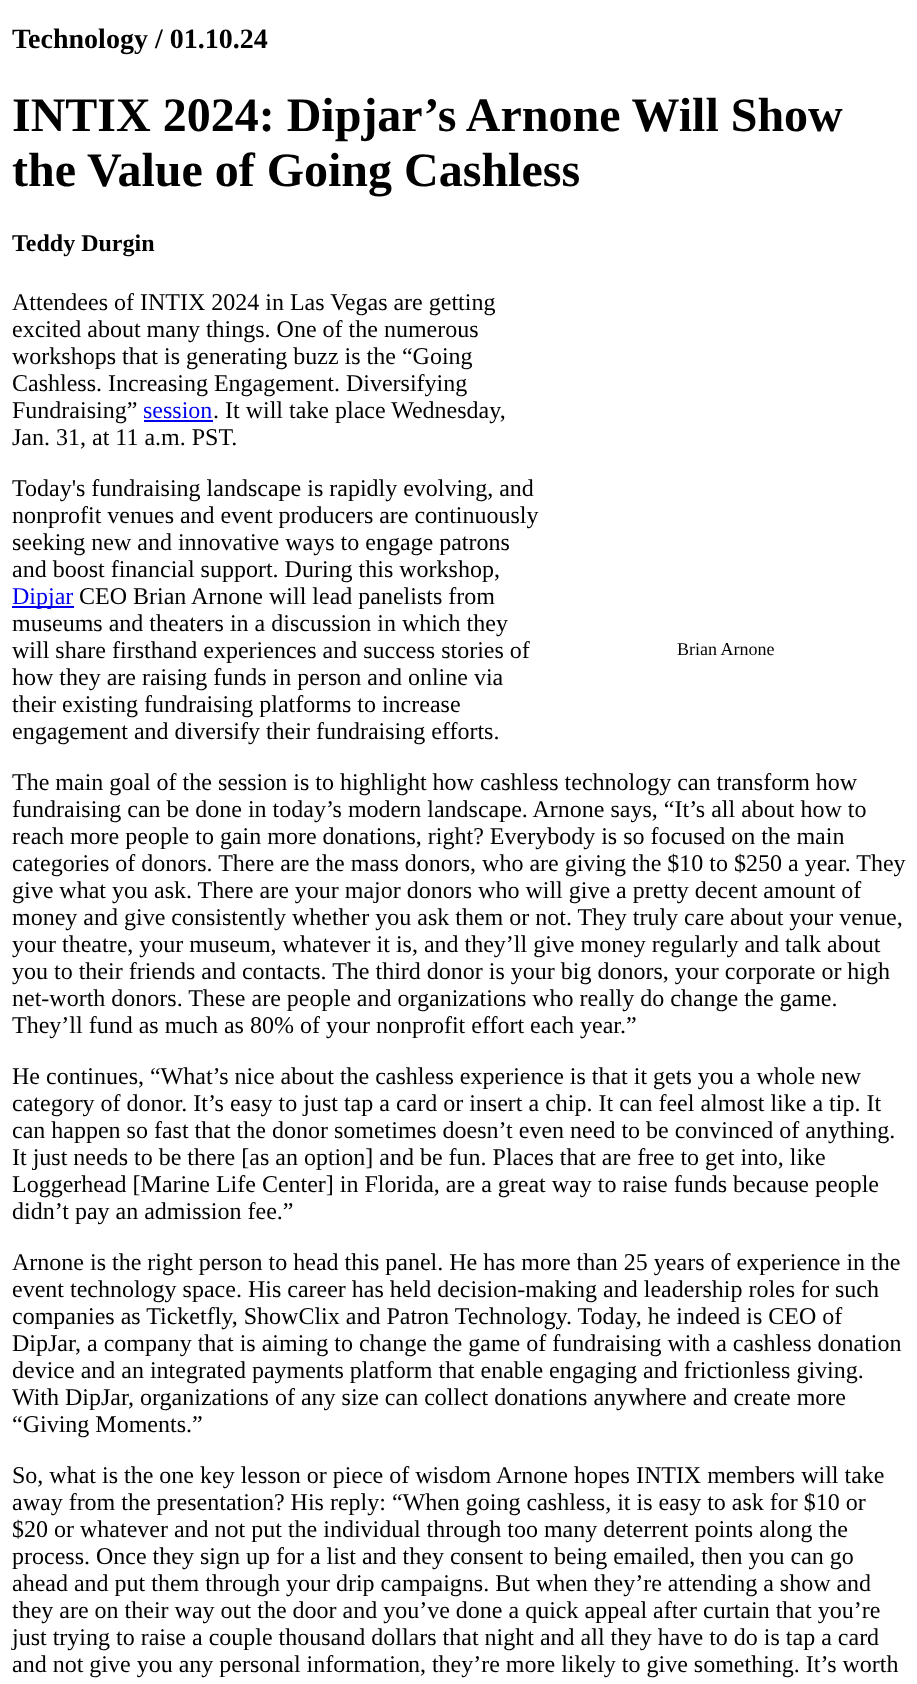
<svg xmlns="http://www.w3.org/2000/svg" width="917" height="1684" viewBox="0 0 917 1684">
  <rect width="100%" height="100%" fill="#fff"/>
  <path d="M144 420h69v2H144z" fill="#00e"/>
  <path d="M12 606h62v2H12z" fill="#00e"/>
  <text x="12" y="48" font-family="Liberation Serif" font-size="28" font-weight="bold" fill="#000">Technology / 01.10.24</text>
  <g font-family="Liberation Serif" font-size="48" font-weight="bold" fill="#000">
    <text x="12" y="131">INTIX 2024: Dipjar’s Arnone Will Show</text>
    <text x="12" y="186">the Value of Going Cashless</text>
  </g>
  <text x="12" y="251" font-family="Liberation Serif" font-size="24" font-weight="bold" fill="#000">Teddy Durgin</text>
  <g font-family="Liberation Serif" font-size="24" fill="#000">
    <text x="12" y="310">Attendees of INTIX 2024 in Las Vegas are getting</text>
    <text x="12" y="337">excited about many things. One of the numerous</text>
    <text x="12" y="364">workshops that is generating buzz is the “Going</text>
    <text x="12" y="391">Cashless. Increasing Engagement. Diversifying</text>
    <text x="12" y="418">Fundraising”</text>
  </g>
  <text x="143" y="418" font-family="Liberation Serif" font-size="24" fill="#00e">session</text>
  <g font-family="Liberation Serif" font-size="24" fill="#000">
    <text x="213" y="418">. It will take place Wednesday,</text>
    <text x="12" y="445">Jan. 31, at 11 a.m. PST.</text>
    <text x="12" y="496">Today's fundraising landscape is rapidly evolving, and</text>
    <text x="12" y="523">nonprofit venues and event producers are continuously</text>
    <text x="12" y="550">seeking new and innovative ways to engage patrons</text>
    <text x="12" y="577">and boost financial support. During this workshop,</text>
  </g>
  <text x="12" y="604" font-family="Liberation Serif" font-size="24" fill="#00e">Dipjar</text>
  <g font-family="Liberation Serif" font-size="24" fill="#000">
    <text x="79" y="604">CEO Brian Arnone will lead panelists from</text>
    <text x="12" y="631">museums and theaters in a discussion in which they</text>
    <text x="12" y="658">will share firsthand experiences and success stories of</text>
    <text x="12" y="685">how they are raising funds in person and online via</text>
    <text x="12" y="712">their existing fundraising platforms to increase</text>
    <text x="12" y="739">engagement and diversify their fundraising efforts.</text>
  </g>
  <text x="677" y="655" font-family="Liberation Serif" font-size="18" fill="#000">Brian Arnone</text>
  <g font-family="Liberation Serif" font-size="24" fill="#000">
    <text x="12" y="790">The main goal of the session is to highlight how cashless technology can transform how</text>
    <text x="12" y="817">fundraising can be done in today’s modern landscape. Arnone says, “It’s all about how to</text>
    <text x="12" y="844">reach more people to gain more donations, right? Everybody is so focused on the main</text>
    <text x="12" y="871">categories of donors. There are the mass donors, who are giving the $10 to $250 a year. They</text>
    <text x="12" y="898">give what you ask. There are your major donors who will give a pretty decent amount of</text>
    <text x="12" y="925">money and give consistently whether you ask them or not. They truly care about your venue,</text>
    <text x="12" y="952">your theatre, your museum, whatever it is, and they’ll give money regularly and talk about</text>
    <text x="12" y="979">you to their friends and contacts. The third donor is your big donors, your corporate or high</text>
    <text x="12" y="1006">net-worth donors. These are people and organizations who really do change the game.</text>
    <text x="12" y="1033">They’ll fund as much as 80% of your nonprofit effort each year.”</text>
    <text x="12" y="1084">He continues, “What’s nice about the cashless experience is that it gets you a whole new</text>
    <text x="12" y="1111">category of donor. It’s easy to just tap a card or insert a chip. It can feel almost like a tip. It</text>
    <text x="12" y="1138">can happen so fast that the donor sometimes doesn’t even need to be convinced of anything.</text>
    <text x="12" y="1165">It just needs to be there [as an option] and be fun. Places that are free to get into, like</text>
    <text x="12" y="1192">Loggerhead [Marine Life Center] in Florida, are a great way to raise funds because people</text>
    <text x="12" y="1219">didn’t pay an admission fee.”</text>
    <text x="12" y="1270">Arnone is the right person to head this panel. He has more than 25 years of experience in the</text>
    <text x="12" y="1297">event technology space. His career has held decision-making and leadership roles for such</text>
    <text x="12" y="1324">companies as Ticketfly, ShowClix and Patron Technology. Today, he indeed is CEO of</text>
    <text x="12" y="1351">DipJar, a company that is aiming to change the game of fundraising with a cashless donation</text>
    <text x="12" y="1378">device and an integrated payments platform that enable engaging and frictionless giving.</text>
    <text x="12" y="1405">With DipJar, organizations of any size can collect donations anywhere and create more</text>
    <text x="12" y="1432">“Giving Moments.”</text>
    <text x="12" y="1483">So, what is the one key lesson or piece of wisdom Arnone hopes INTIX members will take</text>
    <text x="12" y="1510">away from the presentation? His reply: “When going cashless, it is easy to ask for $10 or</text>
    <text x="12" y="1537">$20 or whatever and not put the individual through too many deterrent points along the</text>
    <text x="12" y="1564">process. Once they sign up for a list and they consent to being emailed, then you can go</text>
    <text x="12" y="1591">ahead and put them through your drip campaigns. But when they’re attending a show and</text>
    <text x="12" y="1618">they are on their way out the door and you’ve done a quick appeal after curtain that you’re</text>
    <text x="12" y="1645">just trying to raise a couple thousand dollars that night and all they have to do is tap a card</text>
    <text x="12" y="1672">and not give you any personal information, they’re more likely to give something. It’s worth</text>
  </g>
</svg>
